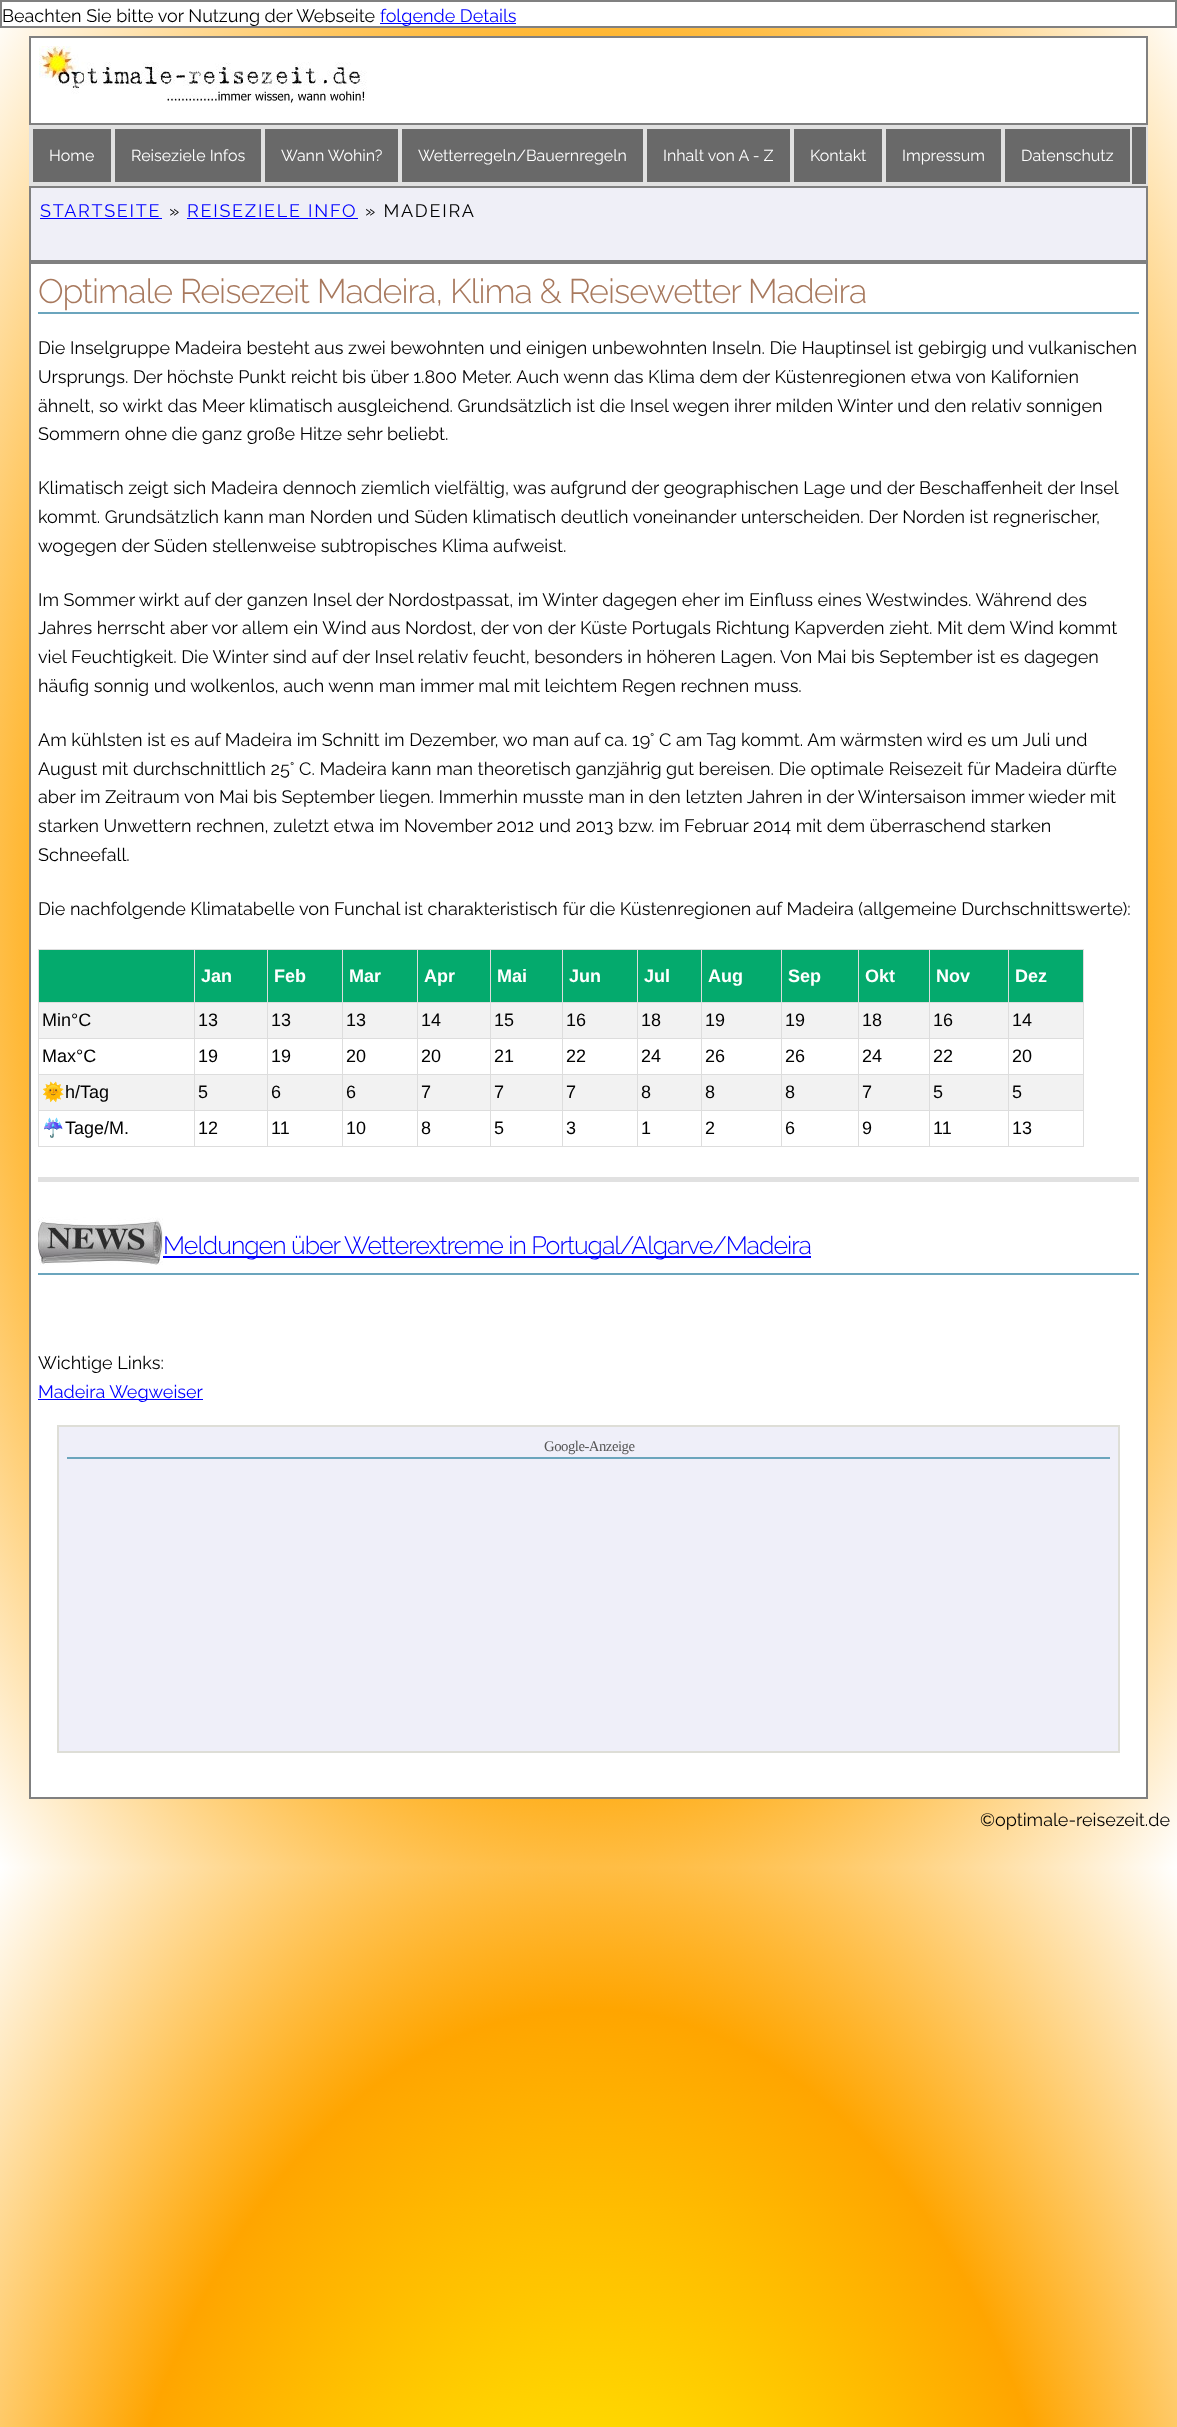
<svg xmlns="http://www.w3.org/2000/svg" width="1177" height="2427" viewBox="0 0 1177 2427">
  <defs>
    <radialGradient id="g1" gradientUnits="userSpaceOnUse" cx="0" cy="0" r="1" gradientTransform="matrix(832 0 0 1320 589 934)"><stop offset="0.02" stop-color="#ff0"/><stop offset="0.6" stop-color="#ffa500"/><stop offset="1" stop-color="#fff"/></radialGradient>
    <radialGradient id="g2" gradientUnits="userSpaceOnUse" cx="0" cy="0" r="1" gradientTransform="matrix(832 0 0 1320 589 2801)"><stop offset="0.02" stop-color="#ff0"/><stop offset="0.6" stop-color="#ffa500"/><stop offset="1" stop-color="#fff"/></radialGradient>
  </defs>
  <rect width="100%" height="100%" fill="#fff"/>
  <path d="M0 28h1177v1839H0z" fill="url(#g1)"/>
  <path d="M0 1867h1177v560H0z" fill="url(#g2)"/>
  <path d="M1 1h1175v26H1z" fill="none" stroke="#808080" stroke-width="2"/>
  <path d="M380 23h136v1H380z" fill="#00f"/>
  <path d="M30 37h1117v87H30z" fill="#fff" stroke="#808080" stroke-width="2"/>
  <image x="39" y="46" width="328" height="60" href="img/1.png"/>
  <path d="M33 127h1113v57H33z" fill="#696969"/>
  <path d="M30 126h1117v59H30z" fill="none" stroke="#e1e1e1" stroke-width="2"/>
  <path d="M32 128h80v55H32z" fill="none" stroke="#e1e1e1" stroke-width="2"/>
  <path d="M114 128h148v55H114z" fill="none" stroke="#e1e1e1" stroke-width="2"/>
  <path d="M264 128h135v55H264z" fill="none" stroke="#e1e1e1" stroke-width="2"/>
  <path d="M401 128h243v55H401z" fill="none" stroke="#e1e1e1" stroke-width="2"/>
  <path d="M646 128h145v55H646z" fill="none" stroke="#e1e1e1" stroke-width="2"/>
  <path d="M793 128h90v55H793z" fill="none" stroke="#e1e1e1" stroke-width="2"/>
  <path d="M885 128h117v55H885z" fill="none" stroke="#e1e1e1" stroke-width="2"/>
  <path d="M1004 128h127v55H1004z" fill="none" stroke="#e1e1e1" stroke-width="2"/>
  <path d="M30 187h1117v74H30z" fill="#efeff7" stroke="#808080" stroke-width="2"/>
  <path d="M40 218h122v1H40z" fill="#00f"/>
  <path d="M187 218h171v1H187z" fill="#00f"/>
  <path d="M30 263h1117v1535H30z" fill="#fff" stroke="#808080" stroke-width="2"/>
  <path d="M38 312h1101v2H38z" fill="#6ba5bd"/>
  <path d="M39 950h155v52H39z" fill="#04aa6d"/>
  <path d="M1008 949h76v1H1008z" fill="#ddd"/>
  <path d="M1008 1002h76v1H1008z" fill="#ddd"/>
  <path d="M39 1003h1044v35H39z" fill="#f2f2f2"/>
  <path d="M1008 1038h76v1H1008z" fill="#ddd"/>
  <path d="M1008 1074h76v1H1008z" fill="#ddd"/>
  <path d="M39 1075h1044v35H39z" fill="#f2f2f2"/>
  <path d="M1008 1110h76v1H1008z" fill="#ddd"/>
  <path d="M1083 1110h1v37H1083z" fill="#ddd"/>
  <path d="M1008 1146h76v1H1008z" fill="#ddd"/>
  <path d="M1008 1110h1v37H1008z" fill="#ddd"/>
  <path d="M929 1110h80v1H929z" fill="#ddd"/>
  <path d="M1008 1074h1v37H1008z" fill="#ddd"/>
  <path d="M929 1074h80v1H929z" fill="#ddd"/>
  <path d="M1008 1038h1v37H1008z" fill="#ddd"/>
  <path d="M929 1038h80v1H929z" fill="#ddd"/>
  <path d="M1008 1002h1v37H1008z" fill="#ddd"/>
  <path d="M929 1002h80v1H929z" fill="#ddd"/>
  <path d="M1008 949h1v54H1008z" fill="#ddd"/>
  <path d="M929 949h80v1H929z" fill="#ddd"/>
  <path d="M929 1146h80v1H929z" fill="#ddd"/>
  <path d="M929 1110h1v37H929z" fill="#ddd"/>
  <path d="M858 1110h72v1H858z" fill="#ddd"/>
  <path d="M929 1074h1v37H929z" fill="#ddd"/>
  <path d="M858 1074h72v1H858z" fill="#ddd"/>
  <path d="M929 1038h1v37H929z" fill="#ddd"/>
  <path d="M858 1038h72v1H858z" fill="#ddd"/>
  <path d="M929 1002h1v37H929z" fill="#ddd"/>
  <path d="M858 1002h72v1H858z" fill="#ddd"/>
  <path d="M929 949h1v54H929z" fill="#ddd"/>
  <path d="M858 949h72v1H858z" fill="#ddd"/>
  <path d="M858 1146h72v1H858z" fill="#ddd"/>
  <path d="M858 1110h1v37H858z" fill="#ddd"/>
  <path d="M781 1110h78v1H781z" fill="#ddd"/>
  <path d="M858 1074h1v37H858z" fill="#ddd"/>
  <path d="M781 1074h78v1H781z" fill="#ddd"/>
  <path d="M858 1038h1v37H858z" fill="#ddd"/>
  <path d="M781 1038h78v1H781z" fill="#ddd"/>
  <path d="M858 1002h1v37H858z" fill="#ddd"/>
  <path d="M781 1002h78v1H781z" fill="#ddd"/>
  <path d="M858 949h1v54H858z" fill="#ddd"/>
  <path d="M781 949h78v1H781z" fill="#ddd"/>
  <path d="M781 1146h78v1H781z" fill="#ddd"/>
  <path d="M781 1110h1v37H781z" fill="#ddd"/>
  <path d="M701 1110h81v1H701z" fill="#ddd"/>
  <path d="M781 1074h1v37H781z" fill="#ddd"/>
  <path d="M701 1074h81v1H701z" fill="#ddd"/>
  <path d="M781 1038h1v37H781z" fill="#ddd"/>
  <path d="M701 1038h81v1H701z" fill="#ddd"/>
  <path d="M781 1002h1v37H781z" fill="#ddd"/>
  <path d="M701 1002h81v1H701z" fill="#ddd"/>
  <path d="M781 949h1v54H781z" fill="#ddd"/>
  <path d="M701 949h81v1H701z" fill="#ddd"/>
  <path d="M701 1146h81v1H701z" fill="#ddd"/>
  <path d="M701 1110h1v37H701z" fill="#ddd"/>
  <path d="M637 1110h65v1H637z" fill="#ddd"/>
  <path d="M701 1074h1v37H701z" fill="#ddd"/>
  <path d="M637 1074h65v1H637z" fill="#ddd"/>
  <path d="M701 1038h1v37H701z" fill="#ddd"/>
  <path d="M637 1038h65v1H637z" fill="#ddd"/>
  <path d="M701 1002h1v37H701z" fill="#ddd"/>
  <path d="M637 1002h65v1H637z" fill="#ddd"/>
  <path d="M701 949h1v54H701z" fill="#ddd"/>
  <path d="M637 949h65v1H637z" fill="#ddd"/>
  <path d="M637 1146h65v1H637z" fill="#ddd"/>
  <path d="M637 1110h1v37H637z" fill="#ddd"/>
  <path d="M562 1110h76v1H562z" fill="#ddd"/>
  <path d="M637 1074h1v37H637z" fill="#ddd"/>
  <path d="M562 1074h76v1H562z" fill="#ddd"/>
  <path d="M637 1038h1v37H637z" fill="#ddd"/>
  <path d="M562 1038h76v1H562z" fill="#ddd"/>
  <path d="M637 1002h1v37H637z" fill="#ddd"/>
  <path d="M562 1002h76v1H562z" fill="#ddd"/>
  <path d="M637 949h1v54H637z" fill="#ddd"/>
  <path d="M562 949h76v1H562z" fill="#ddd"/>
  <path d="M562 1146h76v1H562z" fill="#ddd"/>
  <path d="M562 1110h1v37H562z" fill="#ddd"/>
  <path d="M490 1110h73v1H490z" fill="#ddd"/>
  <path d="M562 1074h1v37H562z" fill="#ddd"/>
  <path d="M490 1074h73v1H490z" fill="#ddd"/>
  <path d="M562 1038h1v37H562z" fill="#ddd"/>
  <path d="M490 1038h73v1H490z" fill="#ddd"/>
  <path d="M562 1002h1v37H562z" fill="#ddd"/>
  <path d="M490 1002h73v1H490z" fill="#ddd"/>
  <path d="M562 949h1v54H562z" fill="#ddd"/>
  <path d="M490 949h73v1H490z" fill="#ddd"/>
  <path d="M490 1146h73v1H490z" fill="#ddd"/>
  <path d="M490 1110h1v37H490z" fill="#ddd"/>
  <path d="M417 1110h74v1H417z" fill="#ddd"/>
  <path d="M490 1074h1v37H490z" fill="#ddd"/>
  <path d="M417 1074h74v1H417z" fill="#ddd"/>
  <path d="M490 1038h1v37H490z" fill="#ddd"/>
  <path d="M417 1038h74v1H417z" fill="#ddd"/>
  <path d="M490 1002h1v37H490z" fill="#ddd"/>
  <path d="M417 1002h74v1H417z" fill="#ddd"/>
  <path d="M490 949h1v54H490z" fill="#ddd"/>
  <path d="M417 949h74v1H417z" fill="#ddd"/>
  <path d="M417 1146h74v1H417z" fill="#ddd"/>
  <path d="M417 1110h1v37H417z" fill="#ddd"/>
  <path d="M342 1110h76v1H342z" fill="#ddd"/>
  <path d="M417 1074h1v37H417z" fill="#ddd"/>
  <path d="M342 1074h76v1H342z" fill="#ddd"/>
  <path d="M417 1038h1v37H417z" fill="#ddd"/>
  <path d="M342 1038h76v1H342z" fill="#ddd"/>
  <path d="M417 1002h1v37H417z" fill="#ddd"/>
  <path d="M342 1002h76v1H342z" fill="#ddd"/>
  <path d="M417 949h1v54H417z" fill="#ddd"/>
  <path d="M342 949h76v1H342z" fill="#ddd"/>
  <path d="M342 1146h76v1H342z" fill="#ddd"/>
  <path d="M342 1110h1v37H342z" fill="#ddd"/>
  <path d="M267 1110h76v1H267z" fill="#ddd"/>
  <path d="M342 1074h1v37H342z" fill="#ddd"/>
  <path d="M267 1074h76v1H267z" fill="#ddd"/>
  <path d="M342 1038h1v37H342z" fill="#ddd"/>
  <path d="M267 1038h76v1H267z" fill="#ddd"/>
  <path d="M342 1002h1v37H342z" fill="#ddd"/>
  <path d="M267 1002h76v1H267z" fill="#ddd"/>
  <path d="M342 949h1v54H342z" fill="#ddd"/>
  <path d="M267 949h76v1H267z" fill="#ddd"/>
  <path d="M267 1146h76v1H267z" fill="#ddd"/>
  <path d="M267 1110h1v37H267z" fill="#ddd"/>
  <path d="M194 1110h74v1H194z" fill="#ddd"/>
  <path d="M267 1074h1v37H267z" fill="#ddd"/>
  <path d="M194 1074h74v1H194z" fill="#ddd"/>
  <path d="M267 1038h1v37H267z" fill="#ddd"/>
  <path d="M194 1038h74v1H194z" fill="#ddd"/>
  <path d="M267 1002h1v37H267z" fill="#ddd"/>
  <path d="M194 1002h74v1H194z" fill="#ddd"/>
  <path d="M267 949h1v54H267z" fill="#ddd"/>
  <path d="M194 949h74v1H194z" fill="#ddd"/>
  <path d="M194 1146h74v1H194z" fill="#ddd"/>
  <path d="M194 1110h1v37H194z" fill="#ddd"/>
  <path d="M38 1110h157v1H38z" fill="#ddd"/>
  <path d="M194 1074h1v37H194z" fill="#ddd"/>
  <path d="M38 1074h157v1H38z" fill="#ddd"/>
  <path d="M194 1038h1v37H194z" fill="#ddd"/>
  <path d="M38 1038h157v1H38z" fill="#ddd"/>
  <path d="M194 1002h1v37H194z" fill="#ddd"/>
  <path d="M38 1002h157v1H38z" fill="#ddd"/>
  <path d="M194 949h1v54H194z" fill="#ddd"/>
  <path d="M38 949h157v1H38z" fill="#ddd"/>
  <path d="M38 1146h157v1H38z" fill="#ddd"/>
  <path d="M38 1110h1v37H38z" fill="#ddd"/>
  <path d="M38 1074h1v37H38z" fill="#ddd"/>
  <path d="M38 1038h1v37H38z" fill="#ddd"/>
  <path d="M38 1002h1v37H38z" fill="#ddd"/>
  <path d="M38 949h1v54H38z" fill="#ddd"/>
  <path d="M195 950h72v52H195z" fill="#04aa6d"/>
  <path d="M268 950h74v52H268z" fill="#04aa6d"/>
  <path d="M343 950h74v52H343z" fill="#04aa6d"/>
  <path d="M418 950h72v52H418z" fill="#04aa6d"/>
  <path d="M491 950h71v52H491z" fill="#04aa6d"/>
  <path d="M563 950h74v52H563z" fill="#04aa6d"/>
  <path d="M638 950h63v52H638z" fill="#04aa6d"/>
  <path d="M702 950h79v52H702z" fill="#04aa6d"/>
  <path d="M782 950h76v52H782z" fill="#04aa6d"/>
  <path d="M859 950h70v52H859z" fill="#04aa6d"/>
  <path d="M930 950h78v52H930z" fill="#04aa6d"/>
  <path d="M1009 950h74v52H1009z" fill="#04aa6d"/>
  <path d="M1083 1074h1v37H1083z" fill="#ddd"/>
  <path d="M1083 1038h1v37H1083z" fill="#ddd"/>
  <path d="M1083 1002h1v37H1083z" fill="#ddd"/>
  <path d="M1083 949h1v54H1083z" fill="#ddd"/>
  <path d="M38 1177h1101v5H38z" fill="#e1e1e1"/>
  <image x="38" y="1217" width="125" height="48" href="img/2.png"/>
  <path d="M38 1273h1101v2H38z" fill="#6ba5bd"/>
  <path d="M163 1256h648v2H163z" fill="#00f"/>
  <path d="M38 1399h165v1H38z" fill="#00f"/>
  <path d="M58 1426h1061v326H58z" fill="#efeff9" stroke="#deded7" stroke-width="2"/>
  <path d="M67 1457h1043v2H67z" fill="#6ba5bd"/>
  <text x="2" y="22" font-family="Raleway" font-size="18" fill="#000">Beachten Sie bitte vor Nutzung der Webseite</text>
  <text x="380" y="22" font-family="Raleway" font-size="18" fill="#00f">folgende Details</text>
  <g font-family="Raleway" font-size="16" fill="#fff">
    <text x="49" y="161">Home</text>
    <text x="131" y="161">Reiseziele Infos</text>
    <text x="281" y="161">Wann Wohin?</text>
    <text x="418" y="161">Wetterregeln/Bauernregeln</text>
    <text x="663" y="161">Inhalt von A - Z</text>
    <text x="810" y="161">Kontakt</text>
    <text x="902" y="161">Impressum</text>
    <text x="1021" y="161">Datenschutz</text>
  </g>
  <text x="40" y="217" font-family="Raleway" font-size="18" letter-spacing="1.75" fill="#00f">STARTSEITE</text>
  <text x="169" y="217" font-family="Raleway" font-size="18" letter-spacing="1.75" fill="#000">»</text>
  <text x="187" y="217" font-family="Raleway" font-size="18" letter-spacing="1.75" fill="#00f">REISEZIELE INFO</text>
  <text x="365" y="217" font-family="Raleway" font-size="18" letter-spacing="1.75" fill="#000">» MADEIRA</text>
  <text x="38" y="303" font-family="Raleway" font-size="34" font-weight="300" letter-spacing="-1" fill="#a8795e">Optimale Reisezeit Madeira, Klima &amp; Reisewetter Madeira</text>
  <g font-family="Raleway" font-size="18" fill="#000">
    <text x="38" y="354">Die Inselgruppe Madeira besteht aus zwei bewohnten und einigen unbewohnten Inseln. Die Hauptinsel ist gebirgig und vulkanischen</text>
    <text x="38" y="383">Ursprungs. Der höchste Punkt reicht bis über 1.800 Meter. Auch wenn das Klima dem der Küstenregionen etwa von Kalifornien</text>
    <text x="38" y="412">ähnelt, so wirkt das Meer klimatisch ausgleichend. Grundsätzlich ist die Insel wegen ihrer milden Winter und den relativ sonnigen</text>
    <text x="38" y="440">Sommern ohne die ganz große Hitze sehr beliebt.</text>
    <text x="38" y="494">Klimatisch zeigt sich Madeira dennoch ziemlich vielfältig, was aufgrund der geographischen Lage und der Beschaffenheit der Insel</text>
    <text x="38" y="523">kommt. Grundsätzlich kann man Norden und Süden klimatisch deutlich voneinander unterscheiden. Der Norden ist regnerischer,</text>
    <text x="38" y="552">wogegen der Süden stellenweise subtropisches Klima aufweist.</text>
    <text x="38" y="606">Im Sommer wirkt auf der ganzen Insel der Nordostpassat, im Winter dagegen eher im Einfluss eines Westwindes. Während des</text>
    <text x="38" y="634">Jahres herrscht aber vor allem ein Wind aus Nordost, der von der Küste Portugals Richtung Kapverden zieht. Mit dem Wind kommt</text>
    <text x="38" y="663">viel Feuchtigkeit. Die Winter sind auf der Insel relativ feucht, besonders in höheren Lagen. Von Mai bis September ist es dagegen</text>
    <text x="38" y="692">häufig sonnig und wolkenlos, auch wenn man immer mal mit leichtem Regen rechnen muss.</text>
    <text x="38" y="746">Am kühlsten ist es auf Madeira im Schnitt im Dezember, wo man auf ca. 19° C am Tag kommt. Am wärmsten wird es um Juli und</text>
    <text x="38" y="775">August mit durchschnittlich 25° C. Madeira kann man theoretisch ganzjährig gut bereisen. Die optimale Reisezeit für Madeira dürfte</text>
    <text x="38" y="803">aber im Zeitraum von Mai bis September liegen. Immerhin musste man in den letzten Jahren in der Wintersaison immer wieder mit</text>
    <text x="38" y="832">starken Unwettern rechnen, zuletzt etwa im November 2012 und 2013 bzw. im Februar 2014 mit dem überraschend starken</text>
    <text x="38" y="861">Schneefall.</text>
    <text x="38" y="915">Die nachfolgende Klimatabelle von Funchal ist charakteristisch für die Küstenregionen auf Madeira (allgemeine Durchschnittswerte):</text>
  </g>
  <g font-family="Liberation Sans" font-size="18" font-weight="bold" fill="#fff">
    <text x="201" y="982">Jan</text>
    <text x="274" y="982">Feb</text>
    <text x="349" y="982">Mar</text>
    <text x="424" y="982">Apr</text>
    <text x="497" y="982">Mai</text>
    <text x="569" y="982">Jun</text>
    <text x="644" y="982">Jul</text>
    <text x="708" y="982">Aug</text>
    <text x="788" y="982">Sep</text>
    <text x="865" y="982">Okt</text>
    <text x="936" y="982">Nov</text>
    <text x="1015" y="982">Dez</text>
  </g>
  <g font-family="Liberation Sans" font-size="18" fill="#000">
    <text x="42" y="1026">Min°C</text>
    <text x="198" y="1026">13</text>
    <text x="271" y="1026">13</text>
    <text x="346" y="1026">13</text>
    <text x="421" y="1026">14</text>
    <text x="494" y="1026">15</text>
    <text x="566" y="1026">16</text>
    <text x="641" y="1026">18</text>
    <text x="705" y="1026">19</text>
    <text x="785" y="1026">19</text>
    <text x="862" y="1026">18</text>
    <text x="933" y="1026">16</text>
    <text x="1012" y="1026">14</text>
    <text x="42" y="1062">Max°C</text>
    <text x="198" y="1062">19</text>
    <text x="271" y="1062">19</text>
    <text x="346" y="1062">20</text>
    <text x="421" y="1062">20</text>
    <text x="494" y="1062">21</text>
    <text x="566" y="1062">22</text>
    <text x="641" y="1062">24</text>
    <text x="705" y="1062">26</text>
    <text x="785" y="1062">26</text>
    <text x="862" y="1062">24</text>
    <text x="933" y="1062">22</text>
    <text x="1012" y="1062">20</text>
  </g>
  <text x="42" y="1098" font-family="Noto Color Emoji" font-size="18" fill="#000">🌞</text>
  <g font-family="Liberation Sans" font-size="18" fill="#000">
    <text x="65" y="1098">h/Tag</text>
    <text x="198" y="1098">5</text>
    <text x="271" y="1098">6</text>
    <text x="346" y="1098">6</text>
    <text x="421" y="1098">7</text>
    <text x="494" y="1098">7</text>
    <text x="566" y="1098">7</text>
    <text x="641" y="1098">8</text>
    <text x="705" y="1098">8</text>
    <text x="785" y="1098">8</text>
    <text x="862" y="1098">7</text>
    <text x="933" y="1098">5</text>
    <text x="1012" y="1098">5</text>
  </g>
  <text x="42" y="1134" font-family="Noto Color Emoji" font-size="18" fill="#000">☔</text>
  <g font-family="Liberation Sans" font-size="18" fill="#000">
    <text x="65" y="1134">Tage/M.</text>
    <text x="198" y="1134">12</text>
    <text x="271" y="1134">11</text>
    <text x="346" y="1134">10</text>
    <text x="421" y="1134">8</text>
    <text x="494" y="1134">5</text>
    <text x="566" y="1134">3</text>
    <text x="641" y="1134">1</text>
    <text x="705" y="1134">2</text>
    <text x="785" y="1134">6</text>
    <text x="862" y="1134">9</text>
    <text x="933" y="1134">11</text>
    <text x="1012" y="1134">13</text>
  </g>
  <text x="163" y="1254" font-family="Raleway" font-size="25" font-weight="300" letter-spacing="-1" fill="#00f">Meldungen über Wetterextreme in Portugal/Algarve/Madeira</text>
  <text x="38" y="1369" font-family="Raleway" font-size="18" fill="#000">Wichtige Links:</text>
  <text x="38" y="1398" font-family="Raleway" font-size="18" fill="#00f">Madeira Wegweiser</text>
  <text x="544" y="1451" font-family="Liberation Serif" font-size="14.75" letter-spacing="-0.5" fill="#555">Google-Anzeige</text>
  <text x="980" y="1826" font-family="Raleway" font-size="18" fill="#000">©optimale-reisezeit.de</text>
</svg>
